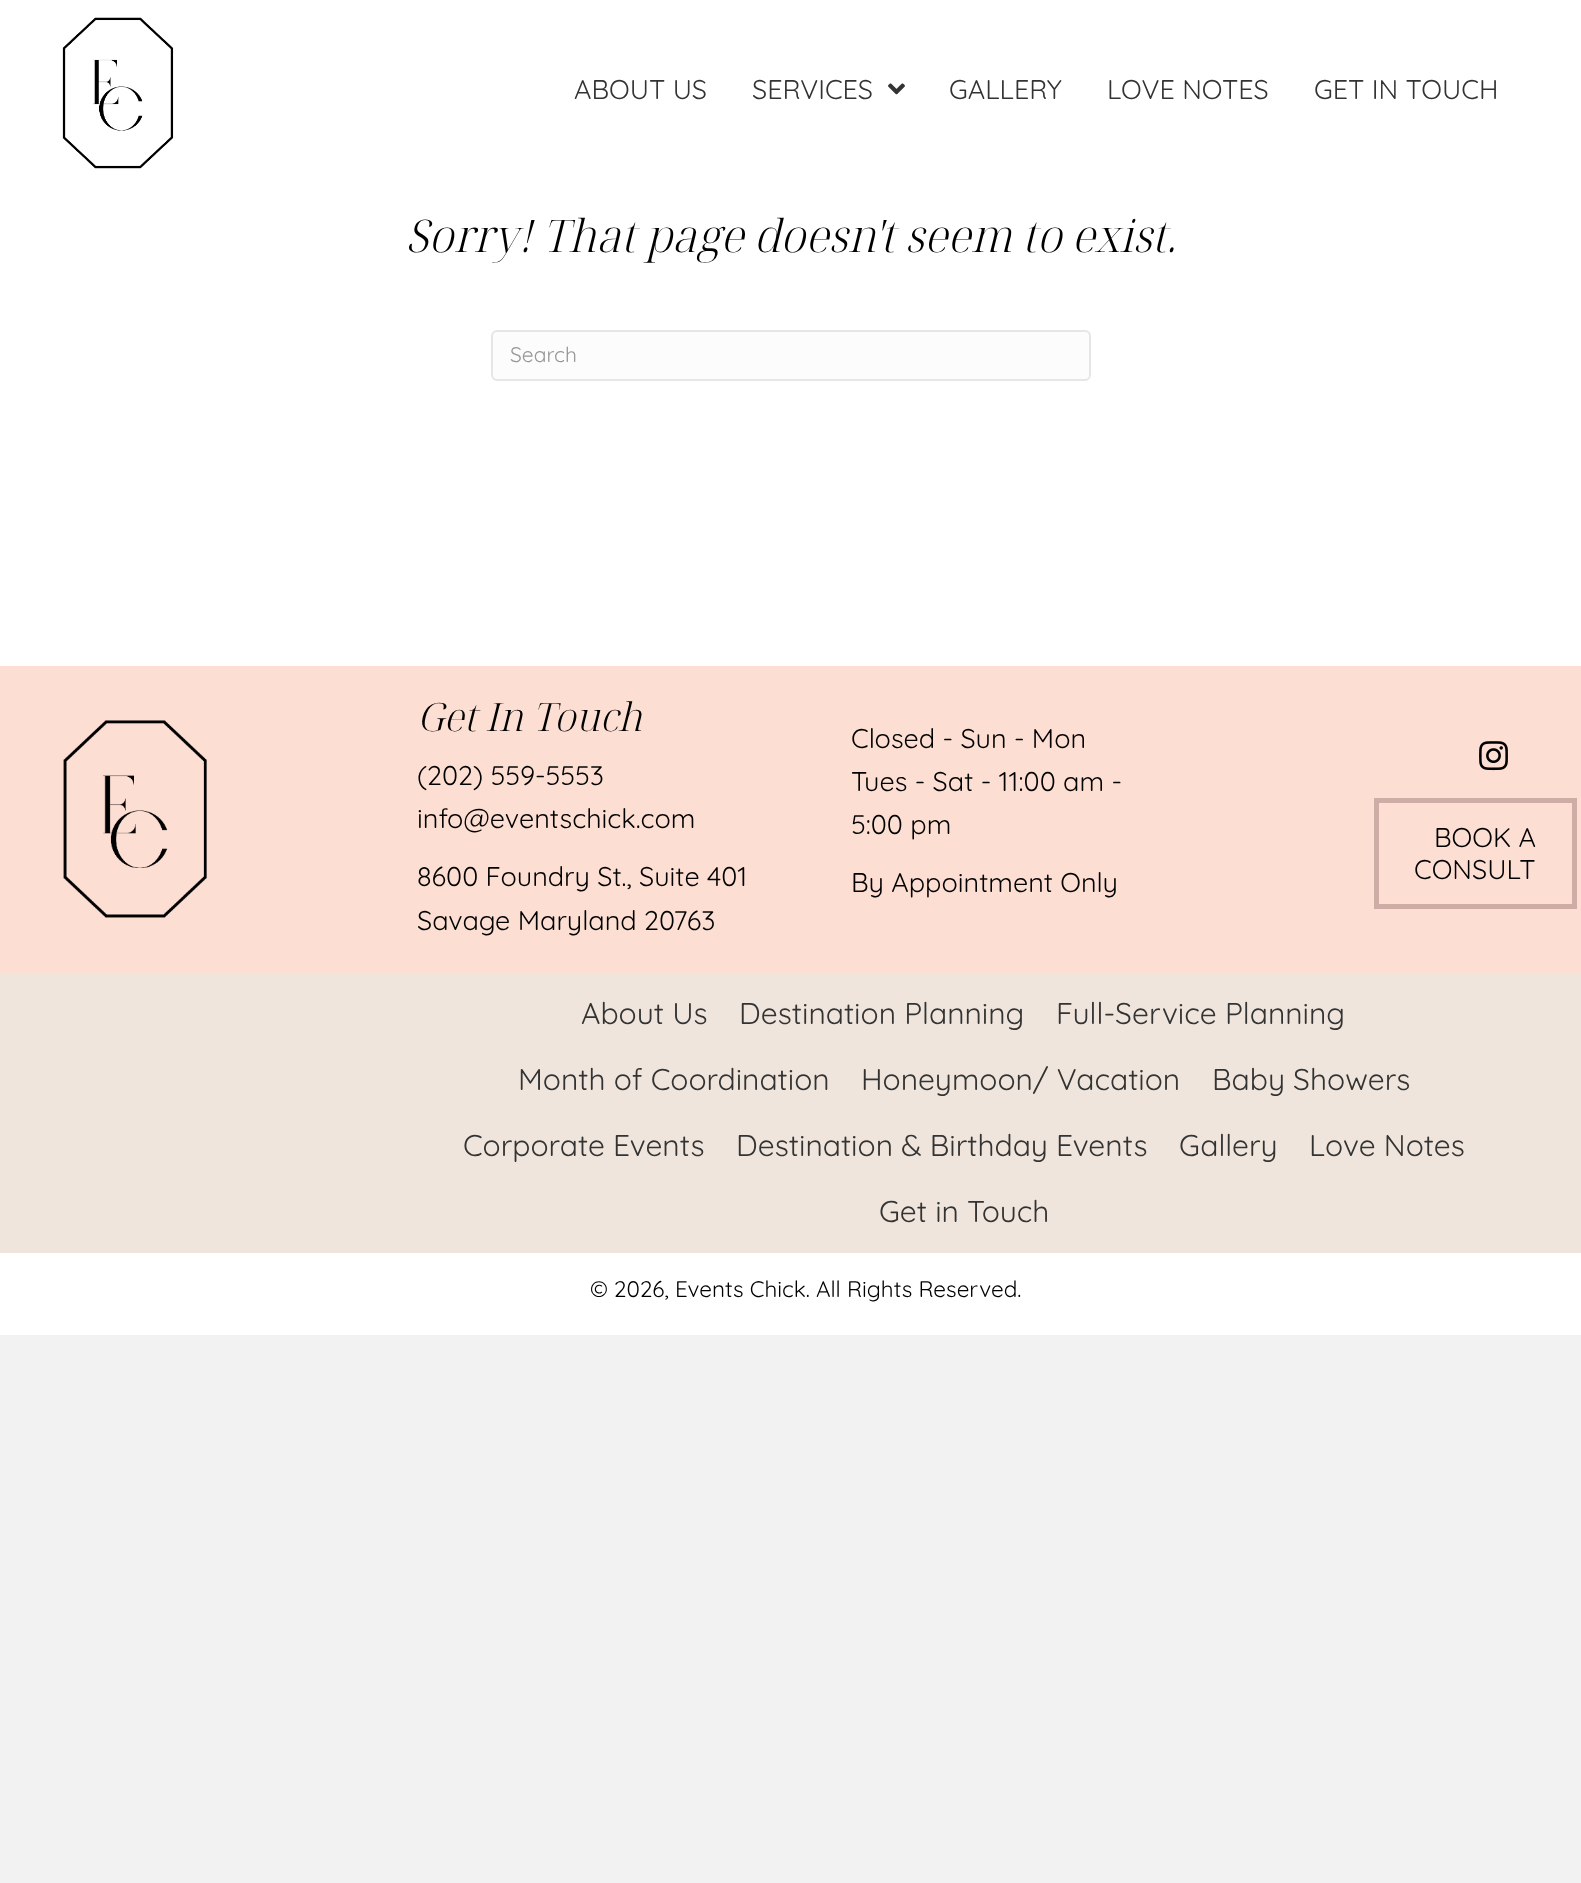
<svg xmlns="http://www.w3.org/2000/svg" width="1581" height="1883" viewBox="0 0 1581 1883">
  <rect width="100%" height="100%" fill="#f2f2f2"/>
  <path d="M0 0h1581v666H0z" fill="#fff"/>
  <image x="62" y="17" width="112" height="152" href="img/1.png"/>
  <image x="888" y="83" width="17" height="12" href="img/2.png"/>
  <rect x="492" y="331" width="598" height="49" rx="5" fill="#fcfcfc" stroke="#e6e6e6" stroke-width="2"/>
  <path d="M0 666h1581v308H0z" fill="#fcded3"/>
  <image x="63" y="720" width="144" height="198" href="img/3.png"/>
  <image x="1479" y="741" width="29" height="30" href="img/4.png"/>
  <path d="M1376.5 800.5h198v106H1376.5z" fill="none" stroke="#ceada6" stroke-width="5"/>
  <path d="M0 974h1581v279H0z" fill="#efe5dc"/>
  <path d="M0 1253h1581v82H0z" fill="#fff"/>
  <g font-family="Quicksand" font-size="27" fill="#333">
    <text x="574" y="99">ABOUT US</text>
    <text x="752" y="99">SERVICES</text>
    <text x="949" y="99">GALLERY</text>
    <text x="1107" y="99">LOVE NOTES</text>
    <text x="1314" y="99">GET IN TOUCH</text>
  </g>
  <text x="405" y="252" font-family="Noto Serif Display" font-size="45" font-weight="300" font-style="italic" fill="#000">Sorry! That page doesn't seem to exist.</text>
  <text x="510" y="362" font-family="Quicksand" font-size="21" fill="#979797">Search</text>
  <text x="417" y="731" font-family="Noto Serif Display" font-size="39" font-weight="300" font-style="italic" fill="#000">Get In Touch</text>
  <g font-family="Quicksand" font-size="27" fill="#000">
    <text x="417" y="785">(202) 559-5553</text>
    <text x="417" y="828">info@eventschick.com</text>
    <text x="417" y="886">8600 Foundry St., Suite 401</text>
    <text x="417" y="930">Savage Maryland 20763</text>
    <text x="851" y="748">Closed - Sun - Mon</text>
    <text x="851" y="791">Tues - Sat - 11:00 am -</text>
    <text x="851" y="834">5:00 pm</text>
    <text x="851" y="892">By Appointment Only</text>
    <text x="1434" y="847">BOOK A</text>
    <text x="1414" y="879">CONSULT</text>
  </g>
  <g font-family="Quicksand" font-size="30" fill="#333">
    <text x="581" y="1024">About Us</text>
    <text x="739" y="1024">Destination Planning</text>
    <text x="1056" y="1024">Full-Service Planning</text>
    <text x="518" y="1090">Month of Coordination</text>
    <text x="861" y="1090">Honeymoon/ Vacation</text>
    <text x="1212" y="1090">Baby Showers</text>
    <text x="463" y="1156">Corporate Events</text>
    <text x="736" y="1156">Destination &amp; Birthday Events</text>
    <text x="1179" y="1156">Gallery</text>
    <text x="1309" y="1156">Love Notes</text>
    <text x="879" y="1222">Get in Touch</text>
  </g>
  <text x="590" y="1297" font-family="Quicksand" font-size="22.5" fill="#000">© 2026, Events Chick. All Rights Reserved.</text>
</svg>
